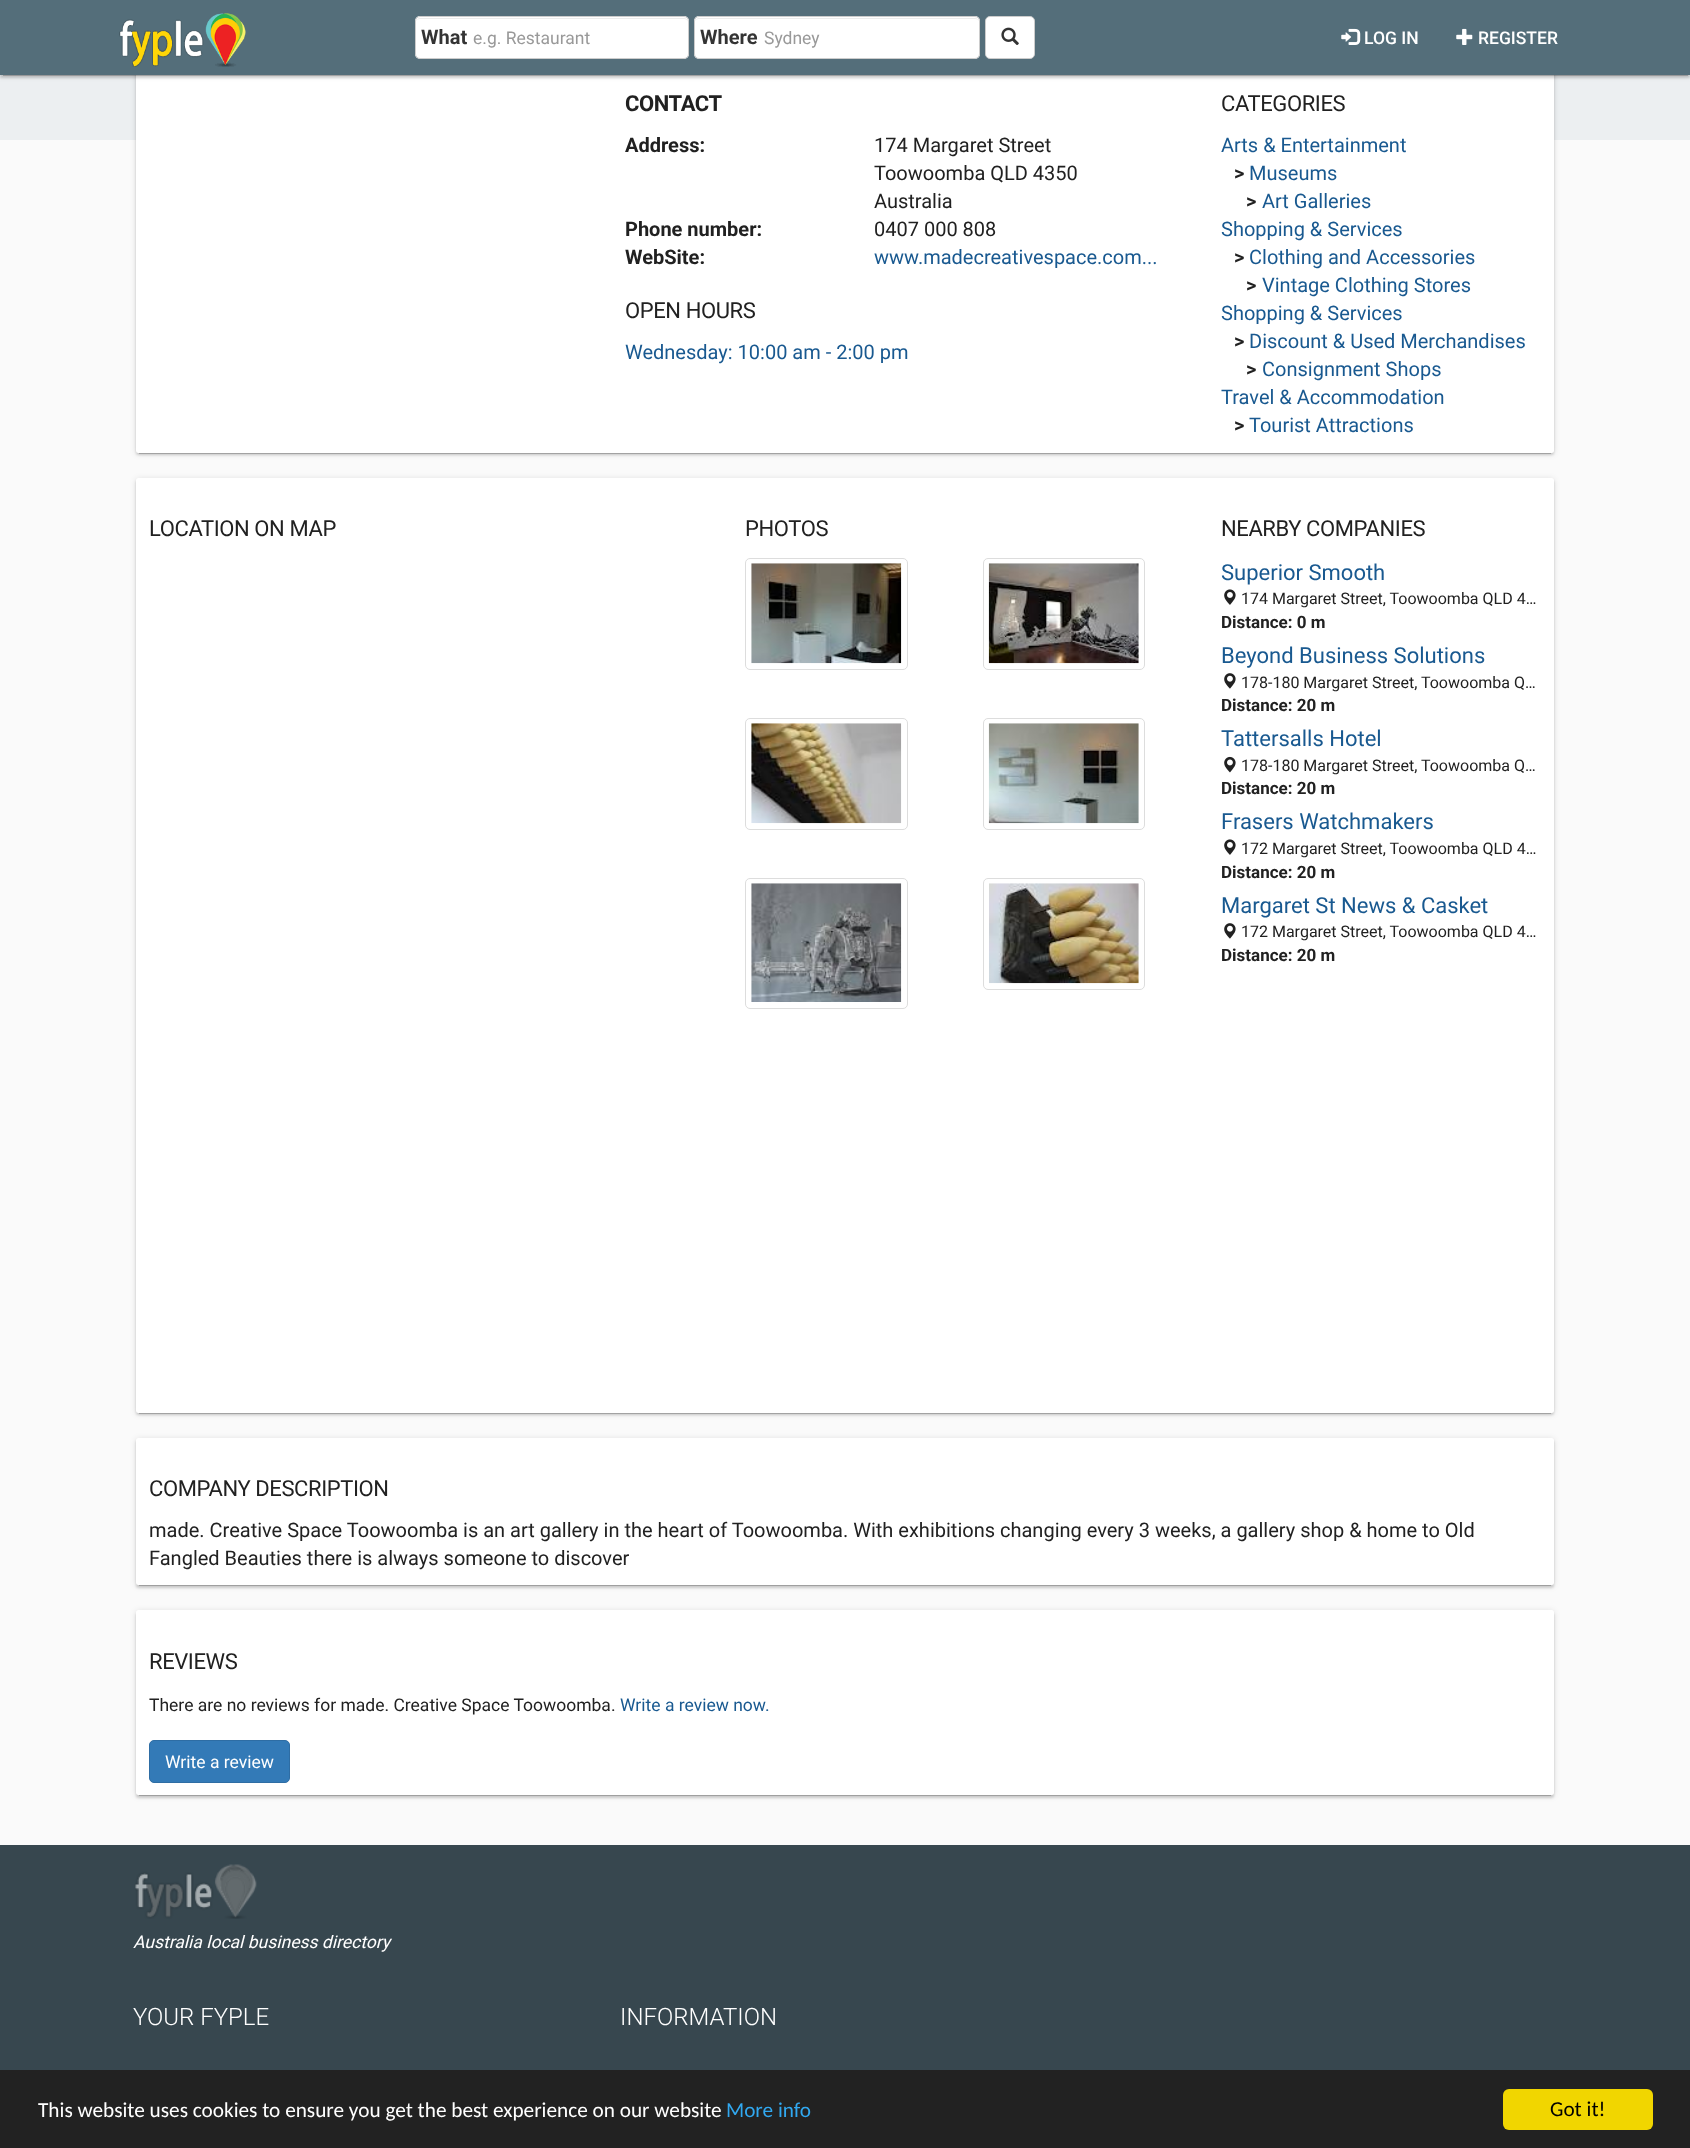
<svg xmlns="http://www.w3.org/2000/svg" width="1690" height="2148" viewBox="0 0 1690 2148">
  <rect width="100%" height="100%" fill="#fafafa"/>
  <path d="M0 75h1690v65H0z" fill="#eceff1"/>
  <rect x="136" y="54" width="1418" height="400" rx="2.5" fill="#0000001f" filter="blur(3px)"/>
  <path d="M139 59h1412v395H139z" fill="#00000033" filter="blur(0.5px)"/>
  <rect x="136" y="55" width="1418" height="400" rx="2.5" fill="#00000024" filter="blur(1px)"/>
  <rect x="136" y="53" width="1418" height="400" rx="2.5" fill="#fff"/>
  <path d="M0 1h1690v75H0z" fill="#0000001f" filter="blur(3px)"/>
  <path d="M3 6h1685v70H3z" fill="#00000033" filter="blur(0.5px)"/>
  <path d="M0 3h1690v75H0z" fill="#00000024" filter="blur(1px)"/>
  <path d="M0 0h1690v75H0z" fill="#546e7a"/>
  <image x="119" y="13" width="127" height="54" href="img/1.png"/>
  <rect x="415" y="16" width="274" height="43" rx="5" fill="#fff"/>
  <path d="M420 19H685L688 21V22C688 20 686 18 684 18H420C418 18 416 20 416 22C416 20 418 19 420 19Z" fill="#ececec"/>
  <rect x="415.5" y="16.5" width="273" height="42" rx="4.5" fill="none" stroke="#ccc"/>
  <rect x="694" y="16" width="286" height="43" rx="5" fill="#fff"/>
  <path d="M699 19H975C977 19 979 20 979 22C979 20 977 18 975 18H699C697 18 695 20 695 22C695 20 697 19 699 19Z" fill="#ececec"/>
  <rect x="694.5" y="16.5" width="285" height="42" rx="4.5" fill="none" stroke="#ccc"/>
  <rect x="985.5" y="16.5" width="49" height="42" rx="4.5" fill="#fff" stroke="#ccc"/>
  <image x="1001" y="27" width="18" height="18" href="img/2.png"/>
  <image x="1341" y="28" width="20" height="17" href="img/3.png"/>
  <image x="1456" y="28" width="17" height="17" href="img/4.png"/>
  <rect x="136" y="479" width="1418" height="935" rx="2.5" fill="#0000001f" filter="blur(3px)"/>
  <path d="M139 484h1412v930H139z" fill="#00000033" filter="blur(0.5px)"/>
  <rect x="136" y="480" width="1418" height="935" rx="2.5" fill="#00000024" filter="blur(1px)"/>
  <rect x="136" y="478" width="1418" height="935" rx="2.5" fill="#fff"/>
  <rect x="745.5" y="558.5" width="162" height="111" rx="4.5" fill="none" stroke="#ddd"/>
  <image x="751" y="563" width="151" height="101" href="img/5.png"/>
  <rect x="983.5" y="558.5" width="161" height="111" rx="4.5" fill="none" stroke="#ddd"/>
  <image x="988" y="563" width="151" height="101" href="img/6.png"/>
  <rect x="745.5" y="718.5" width="162" height="111" rx="4.5" fill="none" stroke="#ddd"/>
  <image x="751" y="723" width="151" height="101" href="img/7.png"/>
  <rect x="983.5" y="718.5" width="161" height="111" rx="4.5" fill="none" stroke="#ddd"/>
  <image x="988" y="723" width="151" height="101" href="img/8.png"/>
  <rect x="745.5" y="878.5" width="162" height="130" rx="4.5" fill="none" stroke="#ddd"/>
  <image x="751" y="883" width="151" height="119" href="img/9.png"/>
  <rect x="983.5" y="878.5" width="161" height="111" rx="4.5" fill="none" stroke="#ddd"/>
  <image x="989" y="883" width="150" height="101" href="img/10.png"/>
  <image x="1224" y="589" width="12" height="16" href="img/11.png"/>
  <image x="1224" y="673" width="12" height="16" href="img/12.png"/>
  <image x="1224" y="756" width="12" height="17" href="img/13.png"/>
  <image x="1224" y="839" width="12" height="16" href="img/11.png"/>
  <image x="1224" y="923" width="12" height="16" href="img/12.png"/>
  <rect x="136" y="1439" width="1418" height="147" rx="2.5" fill="#0000001f" filter="blur(3px)"/>
  <path d="M139 1444h1412v142H139z" fill="#00000033" filter="blur(0.5px)"/>
  <rect x="136" y="1440" width="1418" height="148" rx="2.5" fill="#00000024" filter="blur(1px)"/>
  <rect x="136" y="1438" width="1418" height="147" rx="2.5" fill="#fff"/>
  <rect x="136" y="1611" width="1418" height="185" rx="2.5" fill="#0000001f" filter="blur(3px)"/>
  <path d="M139 1616h1412v180H139z" fill="#00000033" filter="blur(0.5px)"/>
  <rect x="136" y="1613" width="1418" height="185" rx="2.5" fill="#00000024" filter="blur(1px)"/>
  <rect x="136" y="1610" width="1418" height="185" rx="2.5" fill="#fff"/>
  <rect x="149.5" y="1740.5" width="140" height="42" rx="4.5" fill="#337ab7" stroke="#2e6da4"/>
  <path d="M0 1845h1690v225H0z" fill="#37474f"/>
  <image x="135" y="1864" width="122" height="55" href="img/14.png"/>
  <path d="M0 2070h1690v78H0z" fill="#222"/>
  <rect x="1503" y="2089" width="150" height="41" rx="6" fill="#f1d600"/>
  <text x="421" y="44" font-family="Roboto" font-size="20" font-weight="bold" fill="#343434">What</text>
  <text x="473" y="44" font-family="Roboto" font-size="17.5" fill="#999">e.g. Restaurant</text>
  <text x="700" y="44" font-family="Roboto" font-size="20" font-weight="bold" fill="#343434">Where</text>
  <text x="764" y="44" font-family="Roboto" font-size="17.5" fill="#999">Sydney</text>
  <g font-family="Roboto" font-size="17.5" font-weight="500" fill="#fff">
    <text x="1364" y="44">LOG IN</text>
    <text x="1478" y="44">REGISTER</text>
  </g>
  <text x="625" y="111" font-family="Roboto" font-size="22" font-weight="bold" letter-spacing="-0.4" fill="#212121">CONTACT</text>
  <text x="625" y="152" font-family="Roboto" font-size="20" font-weight="bold" fill="#212121">Address:</text>
  <g font-family="Roboto" font-size="20" fill="#212121">
    <text x="874" y="152">174 Margaret Street</text>
    <text x="874" y="180">Toowoomba QLD 4350</text>
    <text x="874" y="208">Australia</text>
  </g>
  <text x="625" y="236" font-family="Roboto" font-size="20" font-weight="bold" fill="#212121">Phone number:</text>
  <text x="874" y="236" font-family="Roboto" font-size="20" fill="#212121">0407 000 808</text>
  <text x="625" y="264" font-family="Roboto" font-size="20" font-weight="bold" fill="#212121">WebSite:</text>
  <text x="874" y="264" font-family="Roboto" font-size="20" fill="#195990">www.madecreativespace.com...</text>
  <text x="625" y="318" font-family="Roboto" font-size="22" letter-spacing="-0.4" fill="#212121">OPEN HOURS</text>
  <text x="625" y="359" font-family="Roboto" font-size="20" fill="#195990">Wednesday: 10:00 am - 2:00 pm</text>
  <text x="1221" y="111" font-family="Roboto" font-size="22" letter-spacing="-0.4" fill="#212121">CATEGORIES</text>
  <text x="1221" y="152" font-family="Roboto" font-size="20" fill="#195990">Arts &amp; Entertainment</text>
  <text x="1234" y="180" font-family="Roboto" font-size="20" font-weight="bold" fill="#212121">&gt;</text>
  <text x="1249" y="180" font-family="Roboto" font-size="20" fill="#195990">Museums</text>
  <text x="1246" y="208" font-family="Roboto" font-size="20" font-weight="bold" fill="#212121">&gt;</text>
  <g font-family="Roboto" font-size="20" fill="#195990">
    <text x="1262" y="208">Art Galleries</text>
    <text x="1221" y="236">Shopping &amp; Services</text>
  </g>
  <text x="1234" y="264" font-family="Roboto" font-size="20" font-weight="bold" fill="#212121">&gt;</text>
  <text x="1249" y="264" font-family="Roboto" font-size="20" fill="#195990">Clothing and Accessories</text>
  <text x="1246" y="292" font-family="Roboto" font-size="20" font-weight="bold" fill="#212121">&gt;</text>
  <g font-family="Roboto" font-size="20" fill="#195990">
    <text x="1262" y="292">Vintage Clothing Stores</text>
    <text x="1221" y="320">Shopping &amp; Services</text>
  </g>
  <text x="1234" y="348" font-family="Roboto" font-size="20" font-weight="bold" fill="#212121">&gt;</text>
  <text x="1249" y="348" font-family="Roboto" font-size="20" fill="#195990">Discount &amp; Used Merchandises</text>
  <text x="1246" y="376" font-family="Roboto" font-size="20" font-weight="bold" fill="#212121">&gt;</text>
  <g font-family="Roboto" font-size="20" fill="#195990">
    <text x="1262" y="376">Consignment Shops</text>
    <text x="1221" y="404">Travel &amp; Accommodation</text>
  </g>
  <text x="1234" y="432" font-family="Roboto" font-size="20" font-weight="bold" fill="#212121">&gt;</text>
  <text x="1249" y="432" font-family="Roboto" font-size="20" fill="#195990">Tourist Attractions</text>
  <g font-family="Roboto" font-size="22" letter-spacing="-0.4" fill="#212121">
    <text x="149" y="536">LOCATION ON MAP</text>
    <text x="745" y="536">PHOTOS</text>
    <text x="1221" y="536">NEARBY COMPANIES</text>
  </g>
  <text x="1221" y="580" font-family="Roboto" font-size="22" fill="#195990">Superior Smooth</text>
  <text x="1241" y="604" font-family="Roboto" font-size="16" fill="#212121">174 Margaret Street, Toowoomba QLD 4…</text>
  <text x="1221" y="628" font-family="Roboto" font-size="17" font-weight="bold" fill="#212121">Distance: 0 m</text>
  <text x="1221" y="663" font-family="Roboto" font-size="22" fill="#195990">Beyond Business Solutions</text>
  <text x="1241" y="688" font-family="Roboto" font-size="16" fill="#212121">178-180 Margaret Street, Toowoomba Q…</text>
  <text x="1221" y="711" font-family="Roboto" font-size="17" font-weight="bold" fill="#212121">Distance: 20 m</text>
  <text x="1221" y="746" font-family="Roboto" font-size="22" fill="#195990">Tattersalls Hotel</text>
  <text x="1241" y="771" font-family="Roboto" font-size="16" fill="#212121">178-180 Margaret Street, Toowoomba Q…</text>
  <text x="1221" y="794" font-family="Roboto" font-size="17" font-weight="bold" fill="#212121">Distance: 20 m</text>
  <text x="1221" y="829" font-family="Roboto" font-size="22" fill="#195990">Frasers Watchmakers</text>
  <text x="1241" y="854" font-family="Roboto" font-size="16" fill="#212121">172 Margaret Street, Toowoomba QLD 4…</text>
  <text x="1221" y="878" font-family="Roboto" font-size="17" font-weight="bold" fill="#212121">Distance: 20 m</text>
  <text x="1221" y="913" font-family="Roboto" font-size="22" fill="#195990">Margaret St News &amp; Casket</text>
  <text x="1241" y="937" font-family="Roboto" font-size="16" fill="#212121">172 Margaret Street, Toowoomba QLD 4…</text>
  <text x="1221" y="961" font-family="Roboto" font-size="17" font-weight="bold" fill="#212121">Distance: 20 m</text>
  <text x="149" y="1496" font-family="Roboto" font-size="22" letter-spacing="-0.4" fill="#212121">COMPANY DESCRIPTION</text>
  <g font-family="Roboto" font-size="20" fill="#212121">
    <text x="149" y="1537">made. Creative Space Toowoomba is an art gallery in the heart of Toowoomba. With exhibitions changing every 3 weeks, a gallery shop &amp; home to Old</text>
    <text x="149" y="1565">Fangled Beauties there is always someone to discover</text>
  </g>
  <text x="149" y="1669" font-family="Roboto" font-size="22" letter-spacing="-0.4" fill="#212121">REVIEWS</text>
  <text x="149" y="1711" font-family="Roboto" font-size="17.5" fill="#212121">There are no reviews for made. Creative Space Toowoomba.</text>
  <text x="620" y="1711" font-family="Roboto" font-size="17.5" fill="#195990">Write a review now.</text>
  <text x="165" y="1768" font-family="Roboto" font-size="17.5" fill="#fff">Write a review</text>
  <text x="133" y="1948" font-family="Roboto" font-size="17.5" font-style="italic" fill="#fff">Australia local business directory</text>
  <g font-family="Roboto" font-size="24" font-weight="300" fill="#fff">
    <text x="133" y="2025">YOUR FYPLE</text>
    <text x="620" y="2025">INFORMATION</text>
  </g>
  <text x="38" y="2117" font-family="Carlito" font-size="21.25" fill="#fff">This website uses cookies to ensure you get the best experience on our website</text>
  <text x="726" y="2117" font-family="Carlito" font-size="21.25" fill="#31a8f0">More info</text>
  <text x="1550" y="2116" font-family="Carlito" font-size="21.25" fill="#000">Got it!</text>
</svg>
